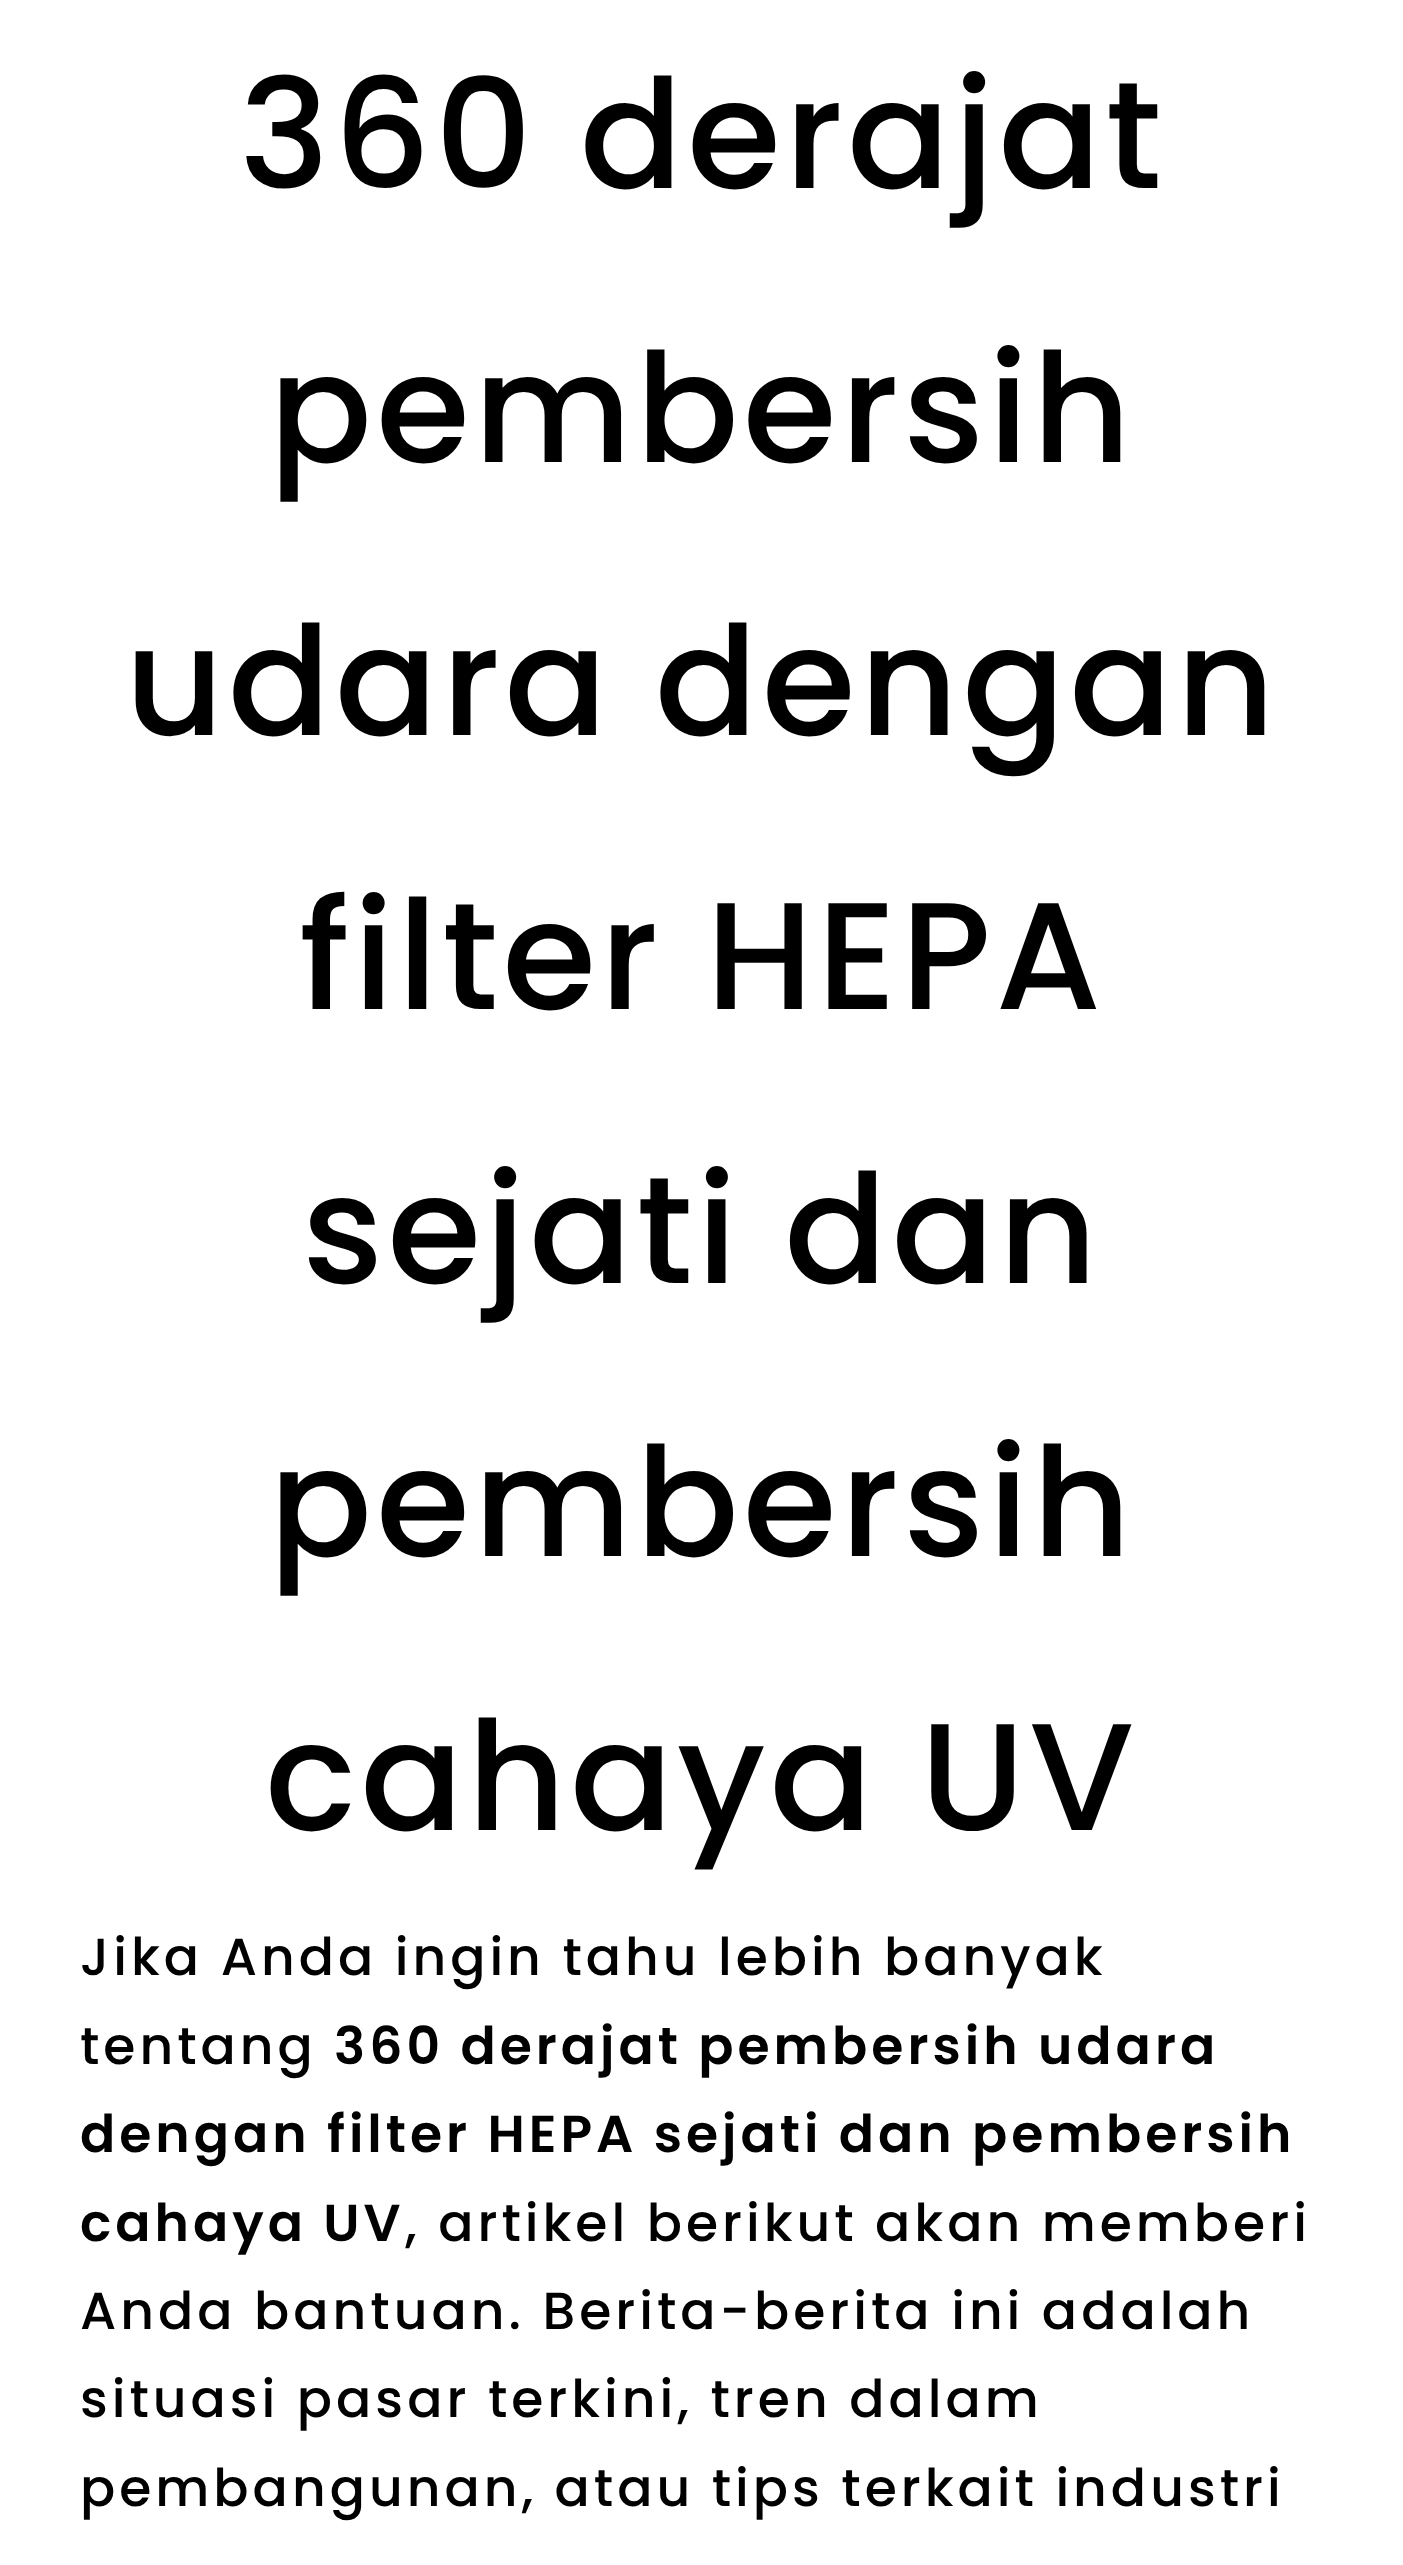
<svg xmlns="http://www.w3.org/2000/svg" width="1403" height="2565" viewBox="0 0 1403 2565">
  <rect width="100%" height="100%" fill="#fff"/>
  <g font-family="Poppins" font-size="152" font-weight="500" letter-spacing="4" fill="#000">
    <text x="239" y="188">360 derajat</text>
    <text x="269" y="462">pembersih</text>
    <text x="125" y="735">udara dengan</text>
    <text x="299" y="1009">filter HEPA</text>
    <text x="302" y="1283">sejati dan</text>
    <text x="269" y="1556">pembersih</text>
    <text x="265" y="1830">cahaya UV</text>
  </g>
  <g font-family="Poppins" font-size="52" font-weight="500" letter-spacing="4" fill="#000">
    <text x="80" y="1975">Jika Anda ingin tahu lebih banyak</text>
    <text x="80" y="2064">tentang</text>
  </g>
  <g font-family="Poppins" font-size="52" font-weight="600" letter-spacing="4" fill="#000">
    <text x="334" y="2064">360 derajat pembersih udara</text>
    <text x="80" y="2152">dengan filter HEPA sejati dan pembersih</text>
    <text x="80" y="2241">cahaya UV</text>
  </g>
  <g font-family="Poppins" font-size="52" font-weight="500" letter-spacing="4" fill="#000">
    <text x="405" y="2241">, artikel berikut akan memberi</text>
    <text x="80" y="2329">Anda bantuan. Berita-berita ini adalah</text>
    <text x="80" y="2417">situasi pasar terkini, tren dalam</text>
    <text x="80" y="2506">pembangunan, atau tips terkait industri</text>
  </g>
</svg>
